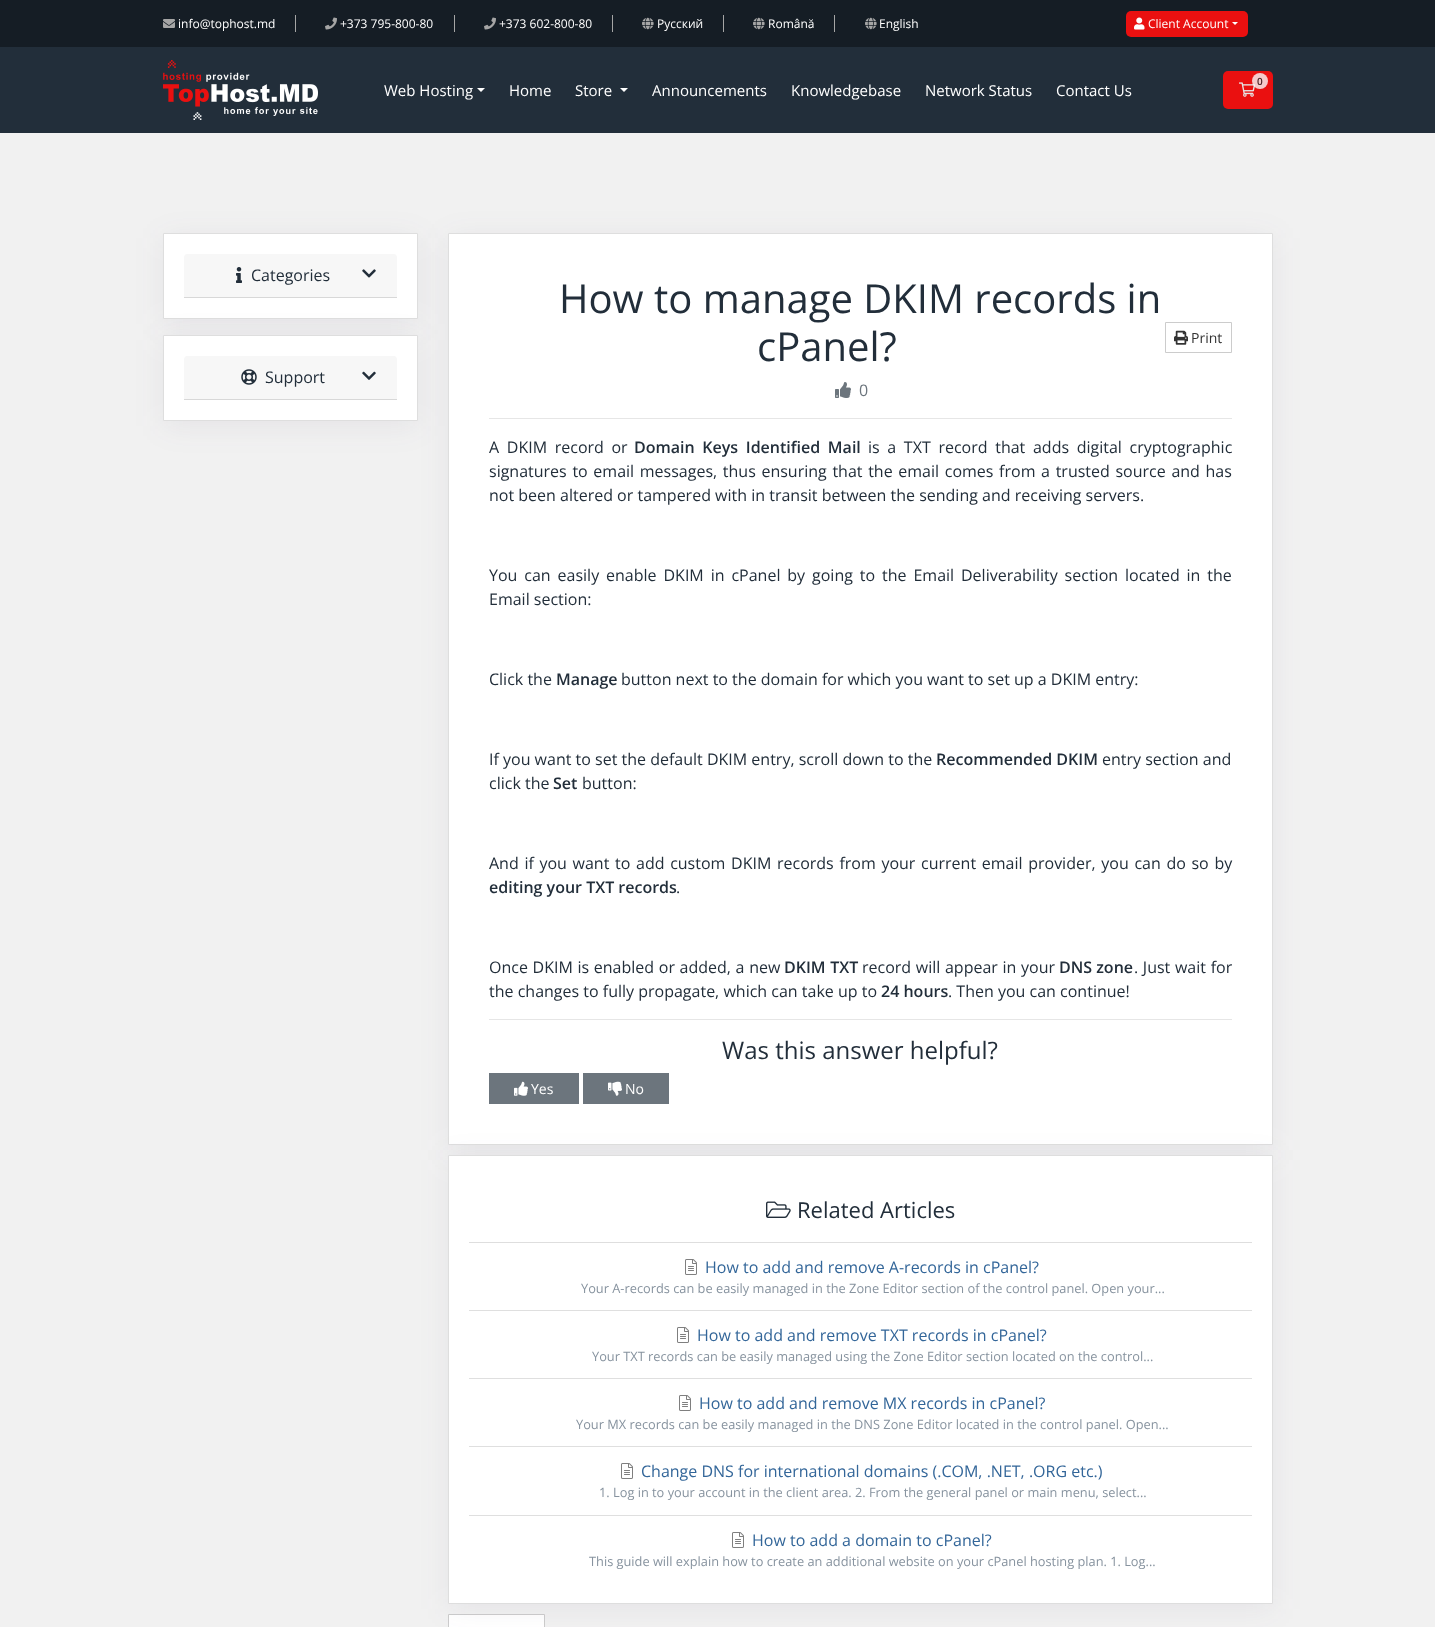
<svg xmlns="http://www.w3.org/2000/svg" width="1435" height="1627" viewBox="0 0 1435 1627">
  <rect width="100%" height="100%" fill="#f1f1f1"/>
  <path d="M0 0h1435v47H0z" fill="#151d25"/>
  <path d="M295 15h1v17H295z" fill="#a5a5a5"/>
  <image x="163" y="19" width="12" height="9" href="img/1.png"/>
  <path d="M454 15h1v17H454z" fill="#a5a5a5"/>
  <image x="325" y="17" width="12" height="13" href="img/2.png"/>
  <path d="M612 15h1v17H612z" fill="#a5a5a5"/>
  <image x="484" y="17" width="12" height="13" href="img/2.png"/>
  <path d="M723 15h1v17H723z" fill="#a5a5a5"/>
  <image x="642" y="17" width="12" height="13" href="img/3.png"/>
  <path d="M834 15h1v17H834z" fill="#a5a5a5"/>
  <image x="753" y="17" width="12" height="13" href="img/3.png"/>
  <image x="865" y="17" width="12" height="13" href="img/3.png"/>
  <rect x="1126" y="11" width="122" height="26" rx="5" fill="#ea1010"/>
  <image x="1134" y="17" width="11" height="13" href="img/4.png"/>
  <path d="M1232 22H1238L1235 25Z" fill="#fff"/>
  <path d="M0 47h1435v86H0z" fill="#222e3a"/>
  <image x="163" y="60" width="155" height="60" href="img/5.png"/>
  <rect x="1223" y="71" width="50" height="38" rx="5" fill="#ea1010"/>
  <image x="1239" y="82" width="17" height="15" href="img/6.png"/>
  <circle cx="1260" cy="81" r="8" fill="#f8f9facc"/>
  <path d="M477 88H485L481 92Z" fill="#fff"/>
  <path d="M620 88H628L624 92Z" fill="#fff"/>
  <path d="M163 238h255v86H163z" fill="#493d5e12" filter="blur(15px)"/>
  <path d="M163.5 233.5h254v85H163.5z" fill="#fff" stroke="#dedede"/>
  <path d="M187 254H394C395.5 254 397 255.5 397 257V298H184V257C184 255.5 185.5 254 187 254Z" fill="#f7f7f7"/>
  <path d="M184 297h213v1H184z" fill="#d8d8d8"/>
  <image x="236" y="267" width="6" height="16" href="img/7.png"/>
  <image x="362" y="269" width="14" height="9" href="img/8.png"/>
  <path d="M163 340h255v86H163z" fill="#493d5e12" filter="blur(15px)"/>
  <path d="M163.5 335.5h254v85H163.5z" fill="#fff" stroke="#dedede"/>
  <path d="M187 356H394C395.5 356 397 357.5 397 359V400H184V359C184 357.5 185.5 356 187 356Z" fill="#f7f7f7"/>
  <path d="M184 399h213v1H184z" fill="#d8d8d8"/>
  <image x="241" y="369" width="16" height="16" href="img/9.png"/>
  <image x="362" y="371" width="14" height="9" href="img/10.png"/>
  <path d="M448 238h825v912H448z" fill="#493d5e12" filter="blur(15px)"/>
  <path d="M448.5 233.5h824v911H448.5z" fill="#fff" stroke="#dedede"/>
  <path d="M1165.5 322.5h66v30H1165.5z" fill="none" stroke="#ccc"/>
  <image x="1174" y="330" width="14" height="15" href="img/11.png"/>
  <image x="835" y="382" width="16" height="16" href="img/12.png"/>
  <path d="M489 418h743v1H489z" fill="#e6e6e6"/>
  <path d="M489 1019h743v1H489z" fill="#e6e6e6"/>
  <path d="M489 1073h90v31H489z" fill="#6c757d"/>
  <image x="514" y="1081" width="14" height="15" href="img/13.png"/>
  <path d="M583 1073h86v31H583z" fill="#6c757d"/>
  <image x="608" y="1081" width="14" height="15" href="img/14.png"/>
  <path d="M448.5 1614.5h96v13H448.5z" fill="#fff" stroke="#ccc"/>
  <path d="M448 1160h825v449H448z" fill="#493d5e12" filter="blur(15px)"/>
  <path d="M448.5 1155.5h824v448H448.5z" fill="#fff" stroke="#dedede"/>
  <image x="766" y="1201" width="25" height="17" href="img/15.png"/>
  <path d="M469 1242h783v1H469z" fill="#dedede"/>
  <path d="M469 1310h783v1H469z" fill="#dfdfdf"/>
  <image x="685" y="1259" width="12" height="16" href="img/16.png"/>
  <path d="M469 1378h783v1H469z" fill="#dfdfdf"/>
  <image x="677" y="1327" width="12" height="16" href="img/16.png"/>
  <path d="M469 1446h783v1H469z" fill="#dfdfdf"/>
  <image x="679" y="1395" width="12" height="16" href="img/16.png"/>
  <path d="M469 1515h783v1H469z" fill="#dfdfdf"/>
  <image x="621" y="1463" width="12" height="16" href="img/16.png"/>
  <image x="732" y="1532" width="12" height="16" href="img/16.png"/>
  <g font-family="Open Sans" font-size="12" fill="#fff">
    <text x="178" y="28">info@tophost.md</text>
    <text x="340" y="28">+373 795-800-80</text>
    <text x="499" y="28">+373 602-800-80</text>
    <text x="657" y="28">Русский</text>
    <text x="768" y="28">Română</text>
    <text x="879" y="28">English</text>
    <text x="1148" y="28">Client Account</text>
  </g>
  <text x="1257" y="85" font-family="Open Sans" font-size="10" font-weight="600" fill="#492124">0</text>
  <g font-family="Open Sans" font-size="15" fill="#fff">
    <text x="384" y="96">Web Hosting</text>
    <text x="509" y="96">Home</text>
    <text x="575" y="96">Store</text>
    <text x="652" y="96">Announcements</text>
    <text x="791" y="96">Knowledgebase</text>
    <text x="925" y="96">Network Status</text>
    <text x="1056" y="96">Contact Us</text>
  </g>
  <g font-family="Open Sans" font-size="16" fill="#222e3a">
    <text x="251" y="281">Categories</text>
    <text x="265" y="383">Support</text>
  </g>
  <g font-family="Open Sans" font-size="40" fill="#222e3a">
    <text x="559" y="313">How to manage DKIM records in</text>
    <text x="757" y="361">cPanel?</text>
  </g>
  <text x="1191" y="343" font-family="Open Sans" font-size="14" fill="#333">Print</text>
  <text x="859" y="396" font-family="Open Sans" font-size="16" fill="#6c757d">0</text>
  <text x="489" y="453" word-spacing="3.5" font-family="Open Sans" font-size="16" fill="#222e3a">A DKIM record or</text>
  <text x="634" y="453" word-spacing="3.5" font-family="Open Sans" font-size="16" font-weight="600" fill="#222e3a">Domain Keys Identified Mail</text>
  <g font-family="Open Sans" font-size="16" fill="#222e3a">
    <text x="868" y="453" word-spacing="3.5">is a TXT record that adds digital cryptographic</text>
    <text x="489" y="477" word-spacing="1.5">signatures to email messages, thus ensuring that the email comes from a trusted source and has</text>
    <text x="489" y="501">not been altered or tampered with in transit between the sending and receiving servers.</text>
    <text x="489" y="581" word-spacing="2.75">You can easily enable DKIM in cPanel by going to the Email Deliverability section located in the</text>
    <text x="489" y="605">Email section:</text>
    <text x="489" y="685">Click the</text>
  </g>
  <text x="556" y="685" font-family="Open Sans" font-size="16" font-weight="600" fill="#222e3a">Manage</text>
  <g font-family="Open Sans" font-size="16" fill="#222e3a">
    <text x="621" y="685">button next to the domain for which you want to set up a DKIM entry:</text>
    <text x="489" y="765">If you want to set the default DKIM entry, scroll down to the</text>
  </g>
  <text x="936" y="765" font-family="Open Sans" font-size="16" font-weight="600" fill="#222e3a">Recommended DKIM</text>
  <g font-family="Open Sans" font-size="16" fill="#222e3a">
    <text x="1102" y="765">entry section and</text>
    <text x="489" y="789">click the</text>
  </g>
  <text x="553" y="789" font-family="Open Sans" font-size="16" font-weight="600" fill="#222e3a">Set</text>
  <g font-family="Open Sans" font-size="16" fill="#222e3a">
    <text x="582" y="789">button:</text>
    <text x="489" y="869" word-spacing="1.5">And if you want to add custom DKIM records from your current email provider, you can do so by</text>
  </g>
  <text x="489" y="893" font-family="Open Sans" font-size="16" font-weight="600" fill="#222e3a">editing your TXT records</text>
  <g font-family="Open Sans" font-size="16" fill="#222e3a">
    <text x="676" y="893">.</text>
    <text x="489" y="973" word-spacing="0.5">Once DKIM is enabled or added, a new</text>
  </g>
  <text x="784" y="973" word-spacing="0.5" font-family="Open Sans" font-size="16" font-weight="600" fill="#222e3a">DKIM TXT</text>
  <text x="862" y="973" word-spacing="0.5" font-family="Open Sans" font-size="16" fill="#222e3a">record will appear in your</text>
  <text x="1059" y="973" font-family="Open Sans" font-size="16" font-weight="600" fill="#222e3a">DNS zone</text>
  <g font-family="Open Sans" font-size="16" fill="#222e3a">
    <text x="1134" y="973" word-spacing="0.5">. Just wait for</text>
    <text x="489" y="997">the changes to fully propagate, which can take up to</text>
  </g>
  <text x="881" y="997" font-family="Open Sans" font-size="16" font-weight="600" fill="#222e3a">24 hours</text>
  <text x="948" y="997" font-family="Open Sans" font-size="16" fill="#222e3a">. Then you can continue!</text>
  <text x="722" y="1059" font-family="Open Sans" font-size="24" fill="#222e3a">Was this answer helpful?</text>
  <g font-family="Open Sans" font-size="14" fill="#fff">
    <text x="531" y="1094">Yes</text>
    <text x="625" y="1094">No</text>
  </g>
  <text x="797" y="1218" font-family="Open Sans" font-size="22" fill="#222e3a">Related Articles</text>
  <text x="705" y="1273" font-family="Open Sans" font-size="16" fill="#369">How to add and remove A-records in cPanel?</text>
  <text x="581" y="1293" font-family="Open Sans" font-size="12.8" fill="#87939f">Your A-records can be easily managed in the Zone Editor section of the control panel. Open your...</text>
  <text x="697" y="1341" font-family="Open Sans" font-size="16" fill="#369">How to add and remove TXT records in cPanel?</text>
  <text x="592" y="1361" font-family="Open Sans" font-size="12.8" fill="#87939f">Your TXT records can be easily managed using the Zone Editor section located on the control...</text>
  <text x="699" y="1409" font-family="Open Sans" font-size="16" fill="#369">How to add and remove MX records in cPanel?</text>
  <text x="576" y="1429" font-family="Open Sans" font-size="12.8" fill="#87939f">Your MX records can be easily managed in the DNS Zone Editor located in the control panel. Open...</text>
  <text x="641" y="1477" font-family="Open Sans" font-size="16" fill="#369">Change DNS for international domains (.COM, .NET, .ORG etc.)</text>
  <text x="599" y="1497" font-family="Open Sans" font-size="12.8" fill="#87939f">1. Log in to your account in the client area. 2. From the general panel or main menu, select...</text>
  <text x="752" y="1546" font-family="Open Sans" font-size="16" fill="#369">How to add a domain to cPanel?</text>
  <text x="589" y="1566" font-family="Open Sans" font-size="12.8" fill="#87939f">This guide will explain how to create an additional website on your cPanel hosting plan. 1. Log...</text>
</svg>
